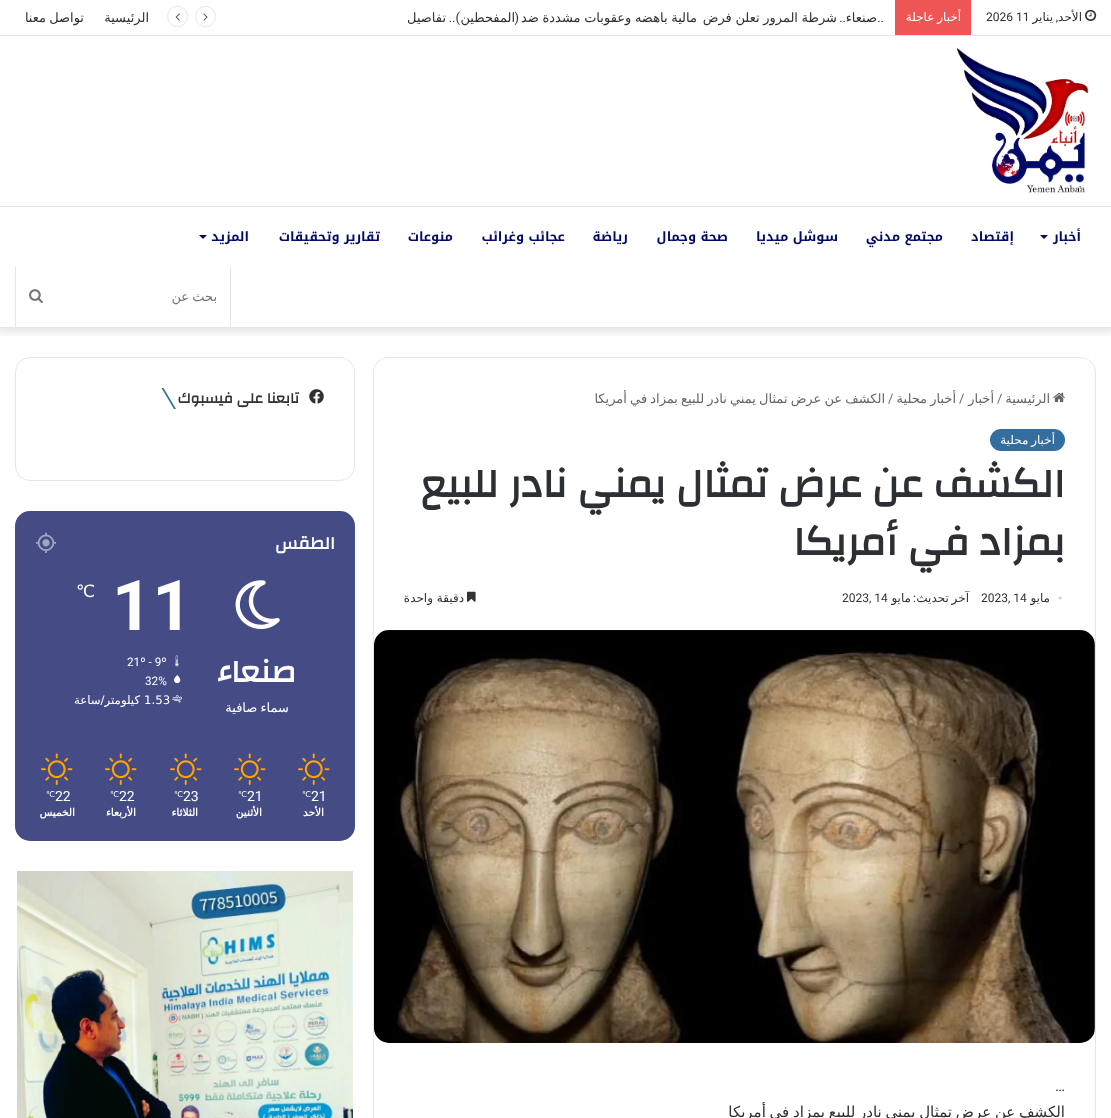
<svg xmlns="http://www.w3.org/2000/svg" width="1111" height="1118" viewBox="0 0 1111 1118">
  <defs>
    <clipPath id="clip1"><path d="M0 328h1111v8H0z"/></clipPath>
  </defs>
  <rect width="100%" height="100%" fill="#fff"/>
  <g clip-path="url(#clip1)">
    <path d="M-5 -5h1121v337H-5z" fill="#0000001a" filter="blur(5px)"/>
  </g>
  <path d="M0 35h1111v1H0z" fill="#e6e6e6"/>
  <image x="1085" y="9" width="12" height="12" href="img/1.png"/>
  <path d="M895 0h76v35H895z" fill="#f05555"/>
  <path d="M205.5 26.5C192.5 26.5 192.5 6.5 205.5 6.5C218.5 6.5 218.5 26.5 205.5 26.5Z" fill="none" stroke="#e6e6e6"/>
  <image x="203" y="13" width="5" height="8" href="img/2.png"/>
  <path d="M177.5 26.5C164.5 26.5 164.5 6.5 177.5 6.5C190.5 6.5 190.5 26.5 177.5 26.5Z" fill="none" stroke="#e6e6e6"/>
  <image x="175" y="13" width="5" height="8" href="img/3.png"/>
  <image x="956" y="48" width="133" height="145" href="img/4.png"/>
  <path d="M0 206h1111v1H0z" fill="#e6e6e6"/>
  <path d="M0 327h1111v1H0z" fill="#e6e6e6"/>
  <path d="M1040 235H1048L1044 239Z" fill="#000b67"/>
  <path d="M199 235H207L203 239Z" fill="#000b67"/>
  <path d="M230 267h1v60H230z" fill="#e6e6e6"/>
  <path d="M15 267h1v60H15z" fill="#e6e6e6"/>
  <image x="29" y="289" width="14" height="14" href="img/5.png"/>
  <rect x="373.5" y="357.5" width="722" height="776" rx="14.5" fill="none" stroke="#e6e6e6"/>
  <image x="1053" y="392" width="12" height="11" href="img/6.png"/>
  <rect x="990" y="429" width="75" height="22" rx="11" fill="#336e9f"/>
  <image x="467" y="591" width="9" height="11" href="img/7.png"/>
  <image x="374" y="630" width="721" height="413" href="img/8.png"/>
  <rect x="15.5" y="357.5" width="339" height="123" rx="14.5" fill="none" stroke="#e6e6e6"/>
  <image x="309" y="389" width="15" height="15" href="img/9.png"/>
  <path d="M161.5 388H163.5L176 409H174Z" fill="#3570a0"/>
  <rect x="15" y="511" width="340" height="330" rx="15" fill="#444b85"/>
  <image x="35" y="532" width="22" height="21" href="img/10.png"/>
  <image x="235" y="580" width="45" height="49" href="img/11.png"/>
  <image x="175" y="655" width="4" height="12" href="img/12.png"/>
  <image x="174" y="675" width="7" height="9" href="img/13.png"/>
  <image x="172" y="695" width="10" height="8" href="img/14.png"/>
  <image x="298" y="753" width="32" height="32" href="img/15.png"/>
  <image x="234" y="753" width="32" height="32" href="img/15.png"/>
  <image x="170" y="753" width="32" height="32" href="img/15.png"/>
  <image x="105" y="753" width="32" height="32" href="img/15.png"/>
  <image x="41" y="753" width="32" height="32" href="img/15.png"/>
  <image x="17" y="871" width="336" height="247" href="img/16.png"/>
  <text x="1082" y="21" font-family="DejaVu Sans" font-size="12" direction="rtl" fill="#2c2f34">الأحد</text>
  <text x="1058" y="21" font-family="Roboto" font-size="12" direction="rtl" fill="#2c2f34">,</text>
  <text x="1053" y="21" font-family="DejaVu Sans" font-size="12" direction="rtl" fill="#2c2f34">يناير</text>
  <text x="986" y="21" font-family="Roboto" font-size="12" fill="#2c2f34">2026 11</text>
  <text x="961" y="21" word-spacing="-1" font-family="DejaVu Sans" font-size="12" direction="rtl" fill="#fff">أخبار عاجلة</text>
  <text x="884" y="22" font-family="Roboto" font-size="13" direction="rtl" fill="#2c2f34">..</text>
  <text x="877" y="22" font-family="DejaVu Sans" font-size="13" direction="rtl" fill="#2c2f34">صنعاء</text>
  <text x="846" y="22" font-family="Roboto" font-size="13" direction="rtl" fill="#2c2f34">..</text>
  <g font-family="DejaVu Sans" font-size="13" direction="rtl" fill="#2c2f34">
    <text x="837" y="22" word-spacing="-0.5">شرطة المرور تعلن فرض</text>
    <text x="697" y="22" word-spacing="-0.5">مالية باهضه وعقوبات مشددة ضد</text>
  </g>
  <text x="519" y="22" font-family="Roboto" font-size="13" direction="rtl" fill="#2c2f34">(</text>
  <text x="515" y="22" font-family="DejaVu Sans" font-size="13" direction="rtl" fill="#2c2f34">المفحطين</text>
  <text x="460" y="22" font-family="Roboto" font-size="13" direction="rtl" fill="#2c2f34">)..</text>
  <g font-family="DejaVu Sans" font-size="13" direction="rtl" fill="#2c2f34">
    <text x="446" y="22">تفاصيل</text>
    <text x="149" y="22">الرئيسية</text>
    <text x="84" y="22" word-spacing="-1">تواصل معنا</text>
  </g>
  <g font-family="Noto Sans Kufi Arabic" font-size="13" font-weight="bold" direction="rtl" fill="#000b67">
    <text x="1081" y="241">أخبار</text>
    <text x="1014" y="241">إقتصاد</text>
    <text x="943" y="241">مجتمع مدني</text>
    <text x="838" y="241">سوشل ميديا</text>
    <text x="728" y="241">صحة وجمال</text>
    <text x="628" y="241">رياضة</text>
    <text x="565" y="241">عجائب وغرائب</text>
    <text x="453" y="241">منوعات</text>
    <text x="380" y="241">تقارير وتحقيقات</text>
    <text x="249" y="241">المزيد</text>
  </g>
  <text x="217" y="301" word-spacing="-1" font-family="DejaVu Sans" font-size="13" direction="rtl" fill="#757575">بحث عن</text>
  <g font-family="DejaVu Sans" font-size="13" direction="rtl" fill="#666">
    <text x="994" y="403">أخبار</text>
    <text x="956" y="403" word-spacing="-1">أخبار محلية</text>
    <text x="1050" y="403">الرئيسية</text>
  </g>
  <g font-family="Roboto" font-size="13" fill="#666">
    <text x="997" y="403">/</text>
    <text x="959" y="403">/</text>
    <text x="888" y="403">/</text>
  </g>
  <text x="885" y="403" word-spacing="-1" font-family="DejaVu Sans" font-size="13" direction="rtl" fill="#666">الكشف عن عرض تمثال يمني نادر للبيع بمزاد في أمريكا</text>
  <text x="1055" y="444" word-spacing="-1" font-family="DejaVu Sans" font-size="12" direction="rtl" fill="#fff">أخبار محلية</text>
  <g font-family="Changa" font-size="41" font-weight="bold" direction="rtl" fill="#2c2f34">
    <text x="1065" y="497">الكشف عن عرض تمثال يمني نادر للبيع</text>
    <text x="1065" y="555">بمزاد في أمريكا</text>
  </g>
  <text x="1058" y="602" font-family="Liberation Serif" font-size="12" fill="#ccc">•</text>
  <text x="1050" y="602" font-family="DejaVu Sans" font-size="12" direction="rtl" fill="#333">مايو</text>
  <text x="981" y="602" font-family="Roboto" font-size="12" fill="#333">2023, 14</text>
  <text x="969" y="602" word-spacing="-1" font-family="DejaVu Sans" font-size="12" direction="rtl" fill="#333">آخر تحديث</text>
  <text x="916" y="602" font-family="Roboto" font-size="12" direction="rtl" fill="#333">:</text>
  <text x="911" y="602" font-family="DejaVu Sans" font-size="12" direction="rtl" fill="#333">مايو</text>
  <text x="842" y="602" font-family="Roboto" font-size="12" fill="#333">2023, 14</text>
  <text x="464" y="602" font-family="DejaVu Sans" font-size="12" direction="rtl" fill="#333">دقيقة واحدة</text>
  <text x="1055" y="1091" font-family="Roboto" font-size="15" fill="#2c2f34">…</text>
  <text x="1065" y="1117" word-spacing="-1" font-family="DejaVu Sans" font-size="15" direction="rtl" fill="#2c2f34">الكشف عن عرض تمثال يمني نادر للبيع بمزاد في أمريكا</text>
  <text x="299" y="403" font-family="Changa" font-size="15" font-weight="bold" direction="rtl" fill="#333">تابعنا على فيسبوك</text>
  <text x="335" y="549" font-family="Changa" font-size="18" font-weight="bold" direction="rtl" fill="#fff">الطقس</text>
  <text x="296" y="682" font-family="Changa" font-size="32" font-weight="bold" direction="rtl" fill="#fff">صنعاء</text>
  <text x="289" y="712" word-spacing="-1" font-family="DejaVu Sans" font-size="13" direction="rtl" fill="#fff">سماء صافية</text>
  <text x="112" y="630" font-family="Roboto" font-size="70" font-weight="bold" fill="#fff">11</text>
  <text x="76" y="597" font-family="DejaVu Sans" font-size="17" fill="#fff">℃</text>
  <g font-family="Roboto" font-size="11.75" fill="#fff">
    <text x="127" y="666">21º - 9º</text>
    <text x="145" y="685">32%</text>
  </g>
  <text x="144" y="704" font-family="DejaVu Sans" font-size="11.75" fill="#fff">1.53</text>
  <text x="140" y="704" font-family="DejaVu Sans" font-size="11.75" direction="rtl" fill="#fff">كيلومتر/ساعة</text>
  <text x="311" y="801" font-family="Roboto" font-size="14" fill="#fff">21</text>
  <text x="302" y="797" font-family="DejaVu Sans" font-size="8" fill="#fff">℃</text>
  <text x="324" y="816" font-family="DejaVu Sans" font-size="10.5" font-weight="bold" direction="rtl" fill="#fff">الأحد</text>
  <text x="247" y="801" font-family="Roboto" font-size="14" fill="#fff">21</text>
  <text x="238" y="797" font-family="DejaVu Sans" font-size="8" fill="#fff">℃</text>
  <text x="262" y="816" font-family="DejaVu Sans" font-size="10.5" font-weight="bold" direction="rtl" fill="#fff">الأثنين</text>
  <text x="183" y="801" font-family="Roboto" font-size="14" fill="#fff">23</text>
  <text x="174" y="797" font-family="DejaVu Sans" font-size="8" fill="#fff">℃</text>
  <text x="198" y="816" font-family="DejaVu Sans" font-size="10.5" font-weight="bold" direction="rtl" fill="#fff">الثلاثاء</text>
  <text x="119" y="801" font-family="Roboto" font-size="14" fill="#fff">22</text>
  <text x="110" y="797" font-family="DejaVu Sans" font-size="8" fill="#fff">℃</text>
  <text x="136" y="816" font-family="DejaVu Sans" font-size="10.5" font-weight="bold" direction="rtl" fill="#fff">الأربعاء</text>
  <text x="55" y="801" font-family="Roboto" font-size="14" fill="#fff">22</text>
  <text x="46" y="797" font-family="DejaVu Sans" font-size="8" fill="#fff">℃</text>
  <text x="75" y="816" font-family="DejaVu Sans" font-size="10.5" font-weight="bold" direction="rtl" fill="#fff">الخميس</text>
</svg>
